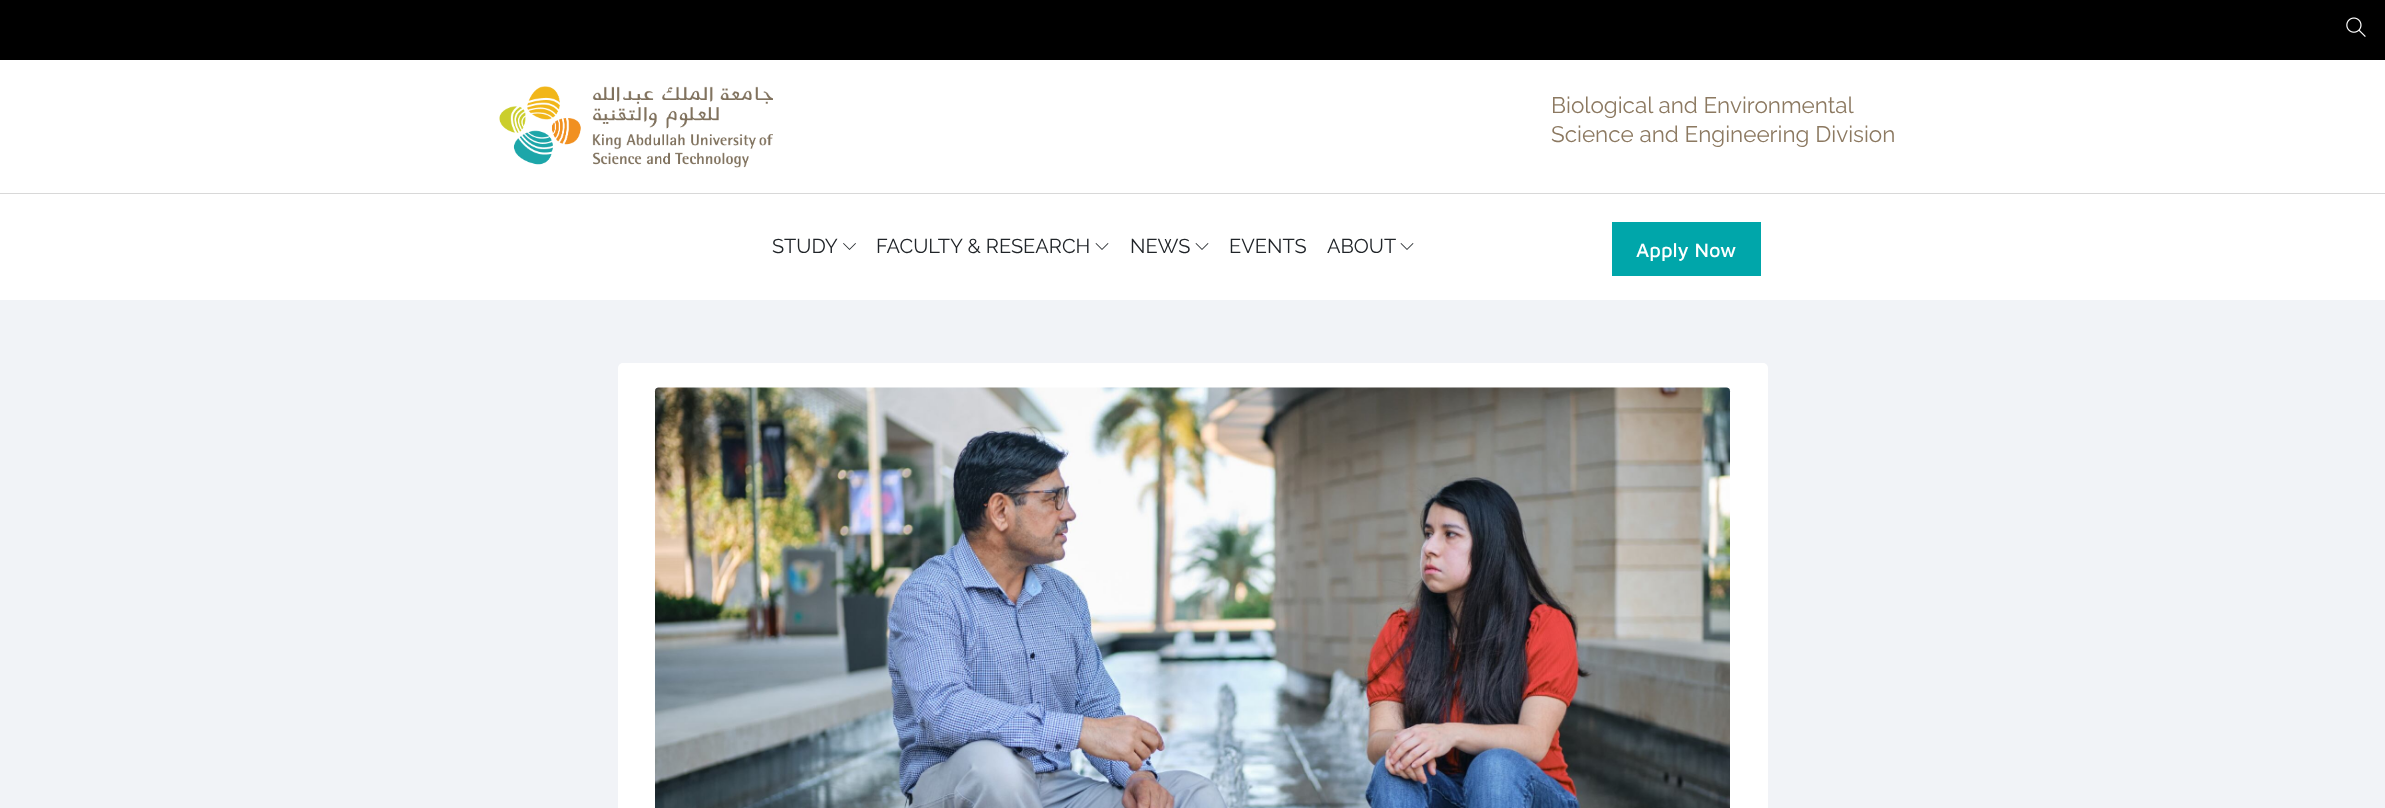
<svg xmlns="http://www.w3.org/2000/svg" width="2385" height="808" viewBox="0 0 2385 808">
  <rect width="100%" height="100%" fill="#fff"/>
  <path d="M0 0h2385v60H0z" fill="#000"/>
  <image x="2346" y="17" width="20" height="20" href="img/1.png"/>
  <image x="499" y="86" width="274" height="82" href="img/2.png"/>
  <path d="M0 193h2385v1H0z" fill="#d8d8d8"/>
  <image x="843" y="243" width="13" height="7" href="img/3.png"/>
  <image x="1095" y="243" width="14" height="7" href="img/4.png"/>
  <image x="1195" y="243" width="14" height="7" href="img/4.png"/>
  <image x="1400" y="243" width="14" height="7" href="img/4.png"/>
  <path d="M1612 222h149v54H1612z" fill="#00a6aa"/>
  <path d="M0 300h2385v508H0z" fill="#f1f3f7"/>
  <rect x="618" y="363" width="1150" height="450" rx="5" fill="#fff"/>
  <image x="654" y="387" width="1077" height="421" href="img/5.png"/>
  <g font-family="Raleway" font-size="22.5" fill="#8c7961">
    <text x="1551" y="113">Biological and Environmental</text>
    <text x="1551" y="142">Science and Engineering Division</text>
  </g>
  <g font-family="Raleway" font-size="20" fill="#202428">
    <text x="772" y="253">STUDY</text>
    <text x="876" y="253">FACULTY &amp; RESEARCH</text>
    <text x="1130" y="253">NEWS</text>
    <text x="1229" y="253">EVENTS</text>
    <text x="1327" y="253">ABOUT</text>
  </g>
  <text x="1636" y="257" font-family="Maven Pro" font-size="20" font-weight="500" fill="#fff">Apply Now</text>
</svg>
